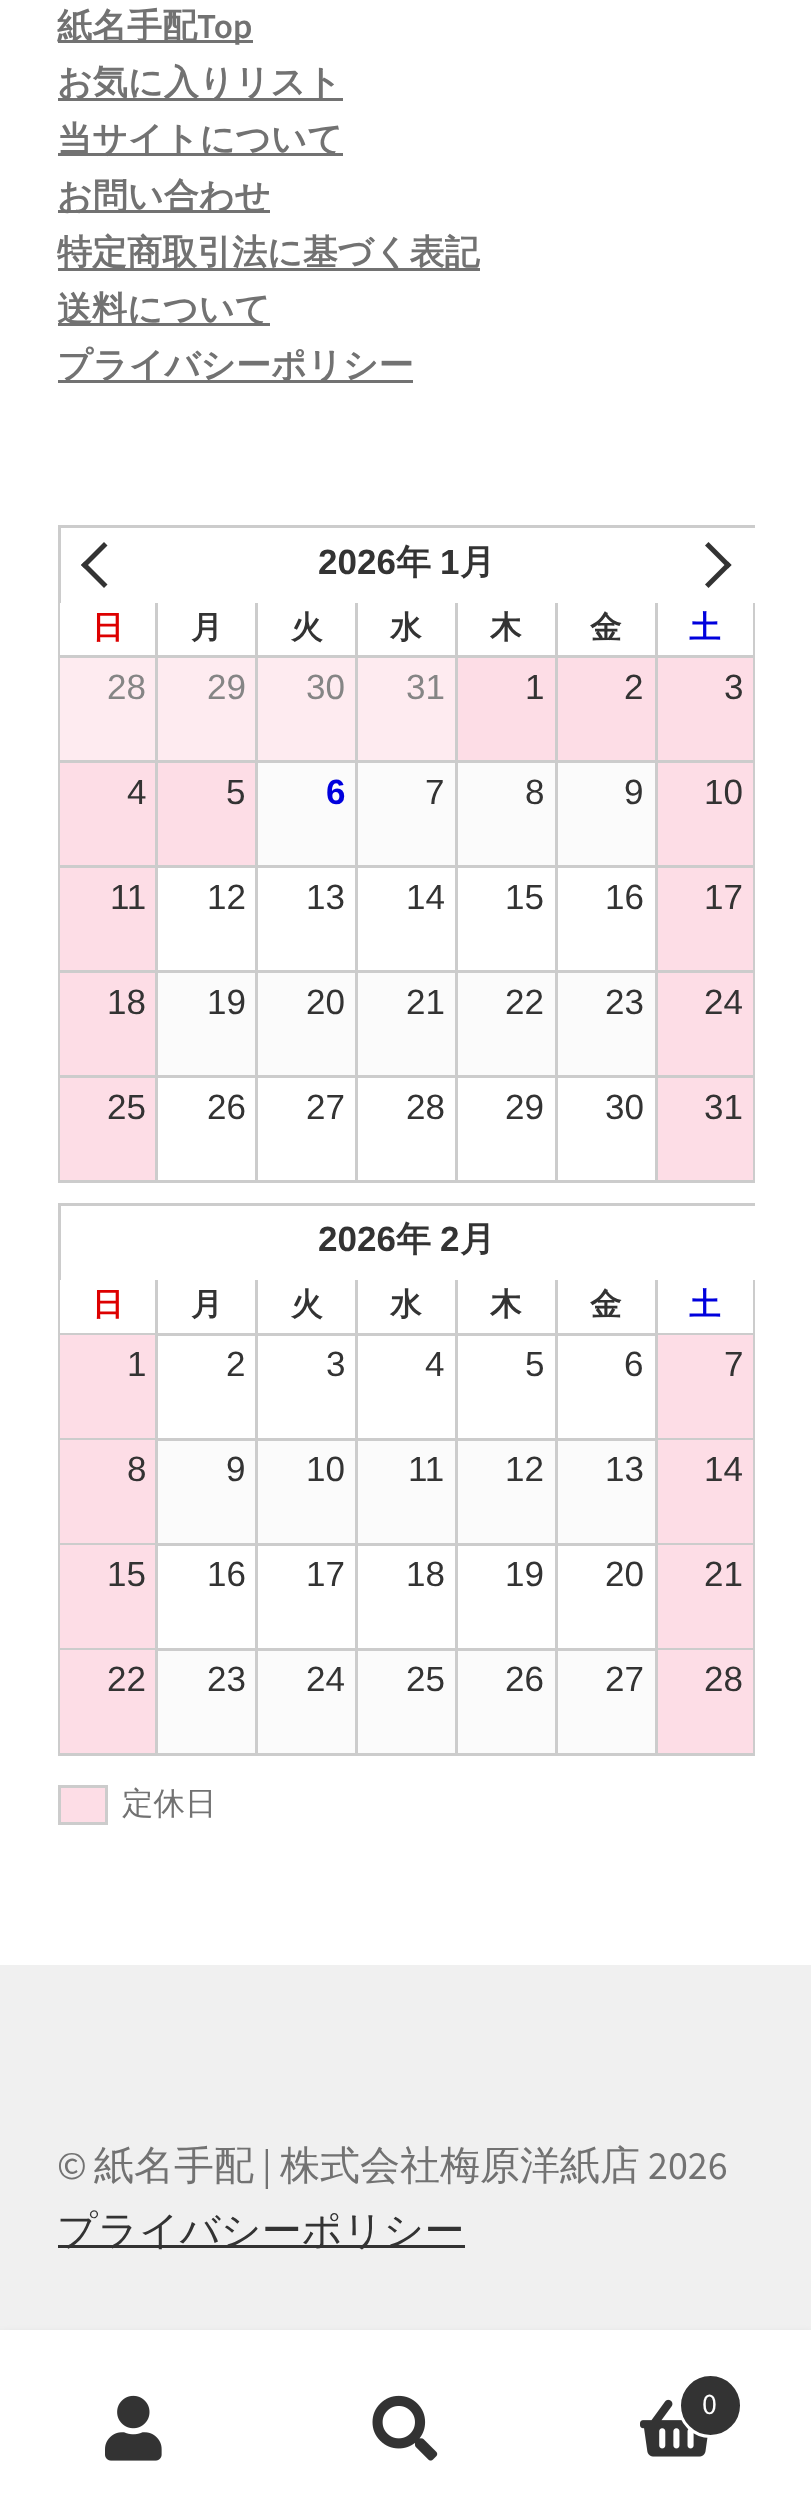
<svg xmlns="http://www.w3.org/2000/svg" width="811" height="2513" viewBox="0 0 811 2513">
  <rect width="100%" height="100%" fill="#fff"/>
  <path d="M58 40h195v3H58z" fill="#727272"/>
  <path d="M58 98h285v3H58z" fill="#727272"/>
  <path d="M58 153h285v3H58z" fill="#727272"/>
  <path d="M58 210h212v3H58z" fill="#727272"/>
  <path d="M58 268h422v3H58z" fill="#727272"/>
  <path d="M58 323h212v3H58z" fill="#727272"/>
  <path d="M58 380h355v3H58z" fill="#727272"/>
  <path d="M58 525h697v3H58z" fill="#ccc"/>
  <path d="M58 1180h697v3H58z" fill="#ccc"/>
  <path d="M58 525h3v658H58z" fill="#ccc"/>
  <path d="M84.5 561.5L107.5 584.5L104 588L81 565Z" fill="#333"/>
  <path d="M104 542L107.5 545.5L84.5 568.5L81 565Z" fill="#333"/>
  <path d="M708.5 542L731.5 565L728 568.5L705 545.5Z" fill="#333"/>
  <path d="M728 561.5L731.5 565L708.5 588L705 584.5Z" fill="#333"/>
  <path d="M60 603h1v52H60z" fill="#fff"/>
  <path d="M155 603h3v52H155z" fill="#ccc"/>
  <path d="M255 603h3v52H255z" fill="#ccc"/>
  <path d="M355 603h3v52H355z" fill="#ccc"/>
  <path d="M455 603h3v52H455z" fill="#ccc"/>
  <path d="M555 603h3v52H555z" fill="#ccc"/>
  <path d="M655 603h3v52H655z" fill="#ccc"/>
  <path d="M753 603h2v52H753z" fill="#ccc"/>
  <path d="M60 655h695v3H60z" fill="#ccc"/>
  <path d="M155 655h3v105H155z" fill="#ccc"/>
  <path d="M60 658h95v102H60z" fill="#feebf0"/>
  <path d="M255 655h3v105H255z" fill="#ccc"/>
  <path d="M158 658h97v102H158z" fill="#feebf0"/>
  <path d="M355 655h3v105H355z" fill="#ccc"/>
  <path d="M258 658h97v102H258z" fill="#feebf0"/>
  <path d="M455 655h3v105H455z" fill="#ccc"/>
  <path d="M358 658h97v102H358z" fill="#feebf0"/>
  <path d="M555 655h3v105H555z" fill="#ccc"/>
  <path d="M458 658h97v102H458z" fill="#fddde6"/>
  <path d="M655 655h3v105H655z" fill="#ccc"/>
  <path d="M558 658h97v102H558z" fill="#fddde6"/>
  <path d="M753 655h2v105H753z" fill="#ccc"/>
  <path d="M658 658h95v102H658z" fill="#fddde6"/>
  <path d="M258 763h397v102H258z" fill="#fbfbfb"/>
  <path d="M60 760h695v3H60z" fill="#ccc"/>
  <path d="M155 760h3v105H155z" fill="#ccc"/>
  <path d="M60 763h95v102H60z" fill="#fddde6"/>
  <path d="M255 760h3v105H255z" fill="#ccc"/>
  <path d="M158 763h97v102H158z" fill="#fddde6"/>
  <path d="M355 760h3v105H355z" fill="#ccc"/>
  <path d="M455 760h3v105H455z" fill="#ccc"/>
  <path d="M555 760h3v105H555z" fill="#ccc"/>
  <path d="M655 760h3v105H655z" fill="#ccc"/>
  <path d="M753 760h2v105H753z" fill="#ccc"/>
  <path d="M658 763h95v102H658z" fill="#fddde6"/>
  <path d="M60 865h695v3H60z" fill="#ccc"/>
  <path d="M155 865h3v105H155z" fill="#ccc"/>
  <path d="M60 868h95v102H60z" fill="#fddde6"/>
  <path d="M255 865h3v105H255z" fill="#ccc"/>
  <path d="M355 865h3v105H355z" fill="#ccc"/>
  <path d="M455 865h3v105H455z" fill="#ccc"/>
  <path d="M555 865h3v105H555z" fill="#ccc"/>
  <path d="M655 865h3v105H655z" fill="#ccc"/>
  <path d="M753 865h2v105H753z" fill="#ccc"/>
  <path d="M658 868h95v102H658z" fill="#fddde6"/>
  <path d="M158 973h497v102H158z" fill="#fbfbfb"/>
  <path d="M60 970h695v3H60z" fill="#ccc"/>
  <path d="M155 970h3v105H155z" fill="#ccc"/>
  <path d="M60 973h95v102H60z" fill="#fddde6"/>
  <path d="M255 970h3v105H255z" fill="#ccc"/>
  <path d="M355 970h3v105H355z" fill="#ccc"/>
  <path d="M455 970h3v105H455z" fill="#ccc"/>
  <path d="M555 970h3v105H555z" fill="#ccc"/>
  <path d="M655 970h3v105H655z" fill="#ccc"/>
  <path d="M753 970h2v105H753z" fill="#ccc"/>
  <path d="M658 973h95v102H658z" fill="#fddde6"/>
  <path d="M60 1075h695v3H60z" fill="#ccc"/>
  <path d="M155 1075h3v105H155z" fill="#ccc"/>
  <path d="M60 1078h95v102H60z" fill="#fddde6"/>
  <path d="M255 1075h3v105H255z" fill="#ccc"/>
  <path d="M355 1075h3v105H355z" fill="#ccc"/>
  <path d="M455 1075h3v105H455z" fill="#ccc"/>
  <path d="M555 1075h3v105H555z" fill="#ccc"/>
  <path d="M655 1075h3v105H655z" fill="#ccc"/>
  <path d="M753 1075h2v105H753z" fill="#ccc"/>
  <path d="M658 1078h95v102H658z" fill="#fddde6"/>
  <path d="M58 1203h697v3H58z" fill="#ccc"/>
  <path d="M58 1753h697v3H58z" fill="#ccc"/>
  <path d="M58 1203h3v552H58z" fill="#ccc"/>
  <path d="M60 1280h1v53H60z" fill="#fff"/>
  <path d="M155 1280h3v53H155z" fill="#ccc"/>
  <path d="M255 1280h3v53H255z" fill="#ccc"/>
  <path d="M355 1280h3v53H355z" fill="#ccc"/>
  <path d="M455 1280h3v53H455z" fill="#ccc"/>
  <path d="M555 1280h3v53H555z" fill="#ccc"/>
  <path d="M655 1280h3v53H655z" fill="#ccc"/>
  <path d="M753 1280h2v53H753z" fill="#ccc"/>
  <path d="M60 1333h98v2H60z" fill="#ccc"/>
  <path d="M155 1333h3v105H155z" fill="#ccc"/>
  <path d="M60 1335h95v103H60z" fill="#fddde6"/>
  <path d="M158 1333h500v3H158z" fill="#ccc"/>
  <path d="M255 1333h3v105H255z" fill="#ccc"/>
  <path d="M355 1333h3v105H355z" fill="#ccc"/>
  <path d="M455 1333h3v105H455z" fill="#ccc"/>
  <path d="M555 1333h3v105H555z" fill="#ccc"/>
  <path d="M655 1333h3v105H655z" fill="#ccc"/>
  <path d="M658 1333h97v2H658z" fill="#ccc"/>
  <path d="M753 1333h2v105H753z" fill="#ccc"/>
  <path d="M658 1335h95v103H658z" fill="#fddde6"/>
  <path d="M158 1441h497v102H158z" fill="#fbfbfb"/>
  <path d="M60 1438h98v2H60z" fill="#ccc"/>
  <path d="M155 1438h3v105H155z" fill="#ccc"/>
  <path d="M60 1440h95v103H60z" fill="#fddde6"/>
  <path d="M158 1438h500v3H158z" fill="#ccc"/>
  <path d="M255 1438h3v105H255z" fill="#ccc"/>
  <path d="M355 1438h3v105H355z" fill="#ccc"/>
  <path d="M455 1438h3v105H455z" fill="#ccc"/>
  <path d="M555 1438h3v105H555z" fill="#ccc"/>
  <path d="M655 1438h3v105H655z" fill="#ccc"/>
  <path d="M658 1438h97v2H658z" fill="#ccc"/>
  <path d="M753 1438h2v105H753z" fill="#ccc"/>
  <path d="M658 1440h95v103H658z" fill="#fddde6"/>
  <path d="M60 1543h98v2H60z" fill="#ccc"/>
  <path d="M155 1543h3v105H155z" fill="#ccc"/>
  <path d="M60 1545h95v103H60z" fill="#fddde6"/>
  <path d="M158 1543h500v3H158z" fill="#ccc"/>
  <path d="M255 1543h3v105H255z" fill="#ccc"/>
  <path d="M355 1543h3v105H355z" fill="#ccc"/>
  <path d="M455 1543h3v105H455z" fill="#ccc"/>
  <path d="M555 1543h3v105H555z" fill="#ccc"/>
  <path d="M655 1543h3v105H655z" fill="#ccc"/>
  <path d="M658 1543h97v2H658z" fill="#ccc"/>
  <path d="M753 1543h2v105H753z" fill="#ccc"/>
  <path d="M658 1545h95v103H658z" fill="#fddde6"/>
  <path d="M158 1651h497v102H158z" fill="#fbfbfb"/>
  <path d="M60 1648h98v2H60z" fill="#ccc"/>
  <path d="M155 1648h3v105H155z" fill="#ccc"/>
  <path d="M60 1650h95v103H60z" fill="#fddde6"/>
  <path d="M158 1648h500v3H158z" fill="#ccc"/>
  <path d="M255 1648h3v105H255z" fill="#ccc"/>
  <path d="M355 1648h3v105H355z" fill="#ccc"/>
  <path d="M455 1648h3v105H455z" fill="#ccc"/>
  <path d="M555 1648h3v105H555z" fill="#ccc"/>
  <path d="M655 1648h3v105H655z" fill="#ccc"/>
  <path d="M658 1648h97v2H658z" fill="#ccc"/>
  <path d="M753 1648h2v105H753z" fill="#ccc"/>
  <path d="M658 1650h95v103H658z" fill="#fddde6"/>
  <path d="M59.5 1786.5h47v37H59.5z" fill="#fddde6" stroke="#ccc" stroke-width="3"/>
  <path d="M0 1965h811v365H0z" fill="#f0f0f0"/>
  <path d="M58 2245h407v3H58z" fill="#333"/>
  <path d="M0 2343h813v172H0z" fill="#000000b3" filter="blur(7.5px)"/>
  <path d="M0 2330h811v15H0z" fill="#fff"/>
  <path d="M0 2345h811v168H0z" fill="#fff"/>
  <image x="372" y="2395" width="66" height="66" href="img/1.png"/>
  <image x="105" y="2395" width="57" height="66" href="img/2.png"/>
  <image x="640" y="2399" width="68" height="58" href="img/3.png"/>
  <circle cx="710.5" cy="2405.5" r="31" fill="#333" stroke="#fff" stroke-width="3"/>
  <text x="57" y="38" font-family="WenQuanYi Zen Hei" font-size="35" font-weight="bold" fill="#727272">紙名手配</text>
  <text x="197" y="38" font-family="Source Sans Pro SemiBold" font-size="35" font-weight="600" fill="#727272">Top</text>
  <g font-family="WenQuanYi Zen Hei" font-size="35" font-weight="bold" fill="#727272">
    <text x="57" y="94">お気に入りリスト</text>
    <text x="57" y="151">当サイトについて</text>
    <text x="57" y="208">お問い合わせ</text>
    <text x="57" y="264">特定商取引法に基づく表記</text>
    <text x="57" y="321">送料について</text>
    <text x="57" y="377">プライバシーポリシー</text>
  </g>
  <text x="318" y="574" font-family="Liberation Sans" font-size="35" font-weight="bold" fill="#333">2026</text>
  <text x="396" y="574" font-family="WenQuanYi Zen Hei" font-size="35" font-weight="bold" fill="#333">年</text>
  <text x="440" y="574" font-family="Liberation Sans" font-size="35" font-weight="bold" fill="#333">1</text>
  <text x="460" y="574" font-family="WenQuanYi Zen Hei" font-size="35" font-weight="bold" fill="#333">月</text>
  <text x="92" y="638" font-family="WenQuanYi Zen Hei" font-size="31.5" font-weight="bold" fill="#d00">日</text>
  <g font-family="WenQuanYi Zen Hei" font-size="31.5" font-weight="bold" fill="#333">
    <text x="191" y="638">月</text>
    <text x="291" y="638">火</text>
    <text x="390" y="638">水</text>
    <text x="490" y="638">木</text>
    <text x="590" y="638">金</text>
  </g>
  <text x="689" y="638" font-family="WenQuanYi Zen Hei" font-size="31.5" font-weight="bold" fill="#00d">土</text>
  <g font-family="Liberation Sans" font-size="35" fill="#858585">
    <text x="107" y="699">28</text>
    <text x="207" y="699">29</text>
    <text x="306" y="699">30</text>
    <text x="406" y="699">31</text>
  </g>
  <g font-family="Liberation Sans" font-size="35" fill="#333">
    <text x="525" y="699">1</text>
    <text x="624" y="699">2</text>
    <text x="724" y="699">3</text>
    <text x="127" y="804">4</text>
    <text x="226" y="804">5</text>
  </g>
  <text x="326" y="804" font-family="Liberation Sans" font-size="35" font-weight="bold" fill="#00d">6</text>
  <g font-family="Liberation Sans" font-size="35" fill="#333">
    <text x="425" y="804">7</text>
    <text x="525" y="804">8</text>
    <text x="624" y="804">9</text>
    <text x="704" y="804">10</text>
    <text x="110" y="909">11</text>
    <text x="207" y="909">12</text>
    <text x="306" y="909">13</text>
    <text x="406" y="909">14</text>
    <text x="505" y="909">15</text>
    <text x="605" y="909">16</text>
    <text x="704" y="909">17</text>
    <text x="107" y="1014">18</text>
    <text x="207" y="1014">19</text>
    <text x="306" y="1014">20</text>
    <text x="406" y="1014">21</text>
    <text x="505" y="1014">22</text>
    <text x="605" y="1014">23</text>
    <text x="704" y="1014">24</text>
    <text x="107" y="1119">25</text>
    <text x="207" y="1119">26</text>
    <text x="306" y="1119">27</text>
    <text x="406" y="1119">28</text>
    <text x="505" y="1119">29</text>
    <text x="605" y="1119">30</text>
    <text x="704" y="1119">31</text>
  </g>
  <text x="318" y="1251" font-family="Liberation Sans" font-size="35" font-weight="bold" fill="#333">2026</text>
  <text x="396" y="1251" font-family="WenQuanYi Zen Hei" font-size="35" font-weight="bold" fill="#333">年</text>
  <text x="440" y="1251" font-family="Liberation Sans" font-size="35" font-weight="bold" fill="#333">2</text>
  <text x="460" y="1251" font-family="WenQuanYi Zen Hei" font-size="35" font-weight="bold" fill="#333">月</text>
  <text x="92" y="1315" font-family="WenQuanYi Zen Hei" font-size="31.5" font-weight="bold" fill="#d00">日</text>
  <g font-family="WenQuanYi Zen Hei" font-size="31.5" font-weight="bold" fill="#333">
    <text x="191" y="1315">月</text>
    <text x="291" y="1315">火</text>
    <text x="390" y="1315">水</text>
    <text x="490" y="1315">木</text>
    <text x="590" y="1315">金</text>
  </g>
  <text x="689" y="1315" font-family="WenQuanYi Zen Hei" font-size="31.5" font-weight="bold" fill="#00d">土</text>
  <g font-family="Liberation Sans" font-size="35" fill="#333">
    <text x="127" y="1376">1</text>
    <text x="226" y="1376">2</text>
    <text x="326" y="1376">3</text>
    <text x="425" y="1376">4</text>
    <text x="525" y="1376">5</text>
    <text x="624" y="1376">6</text>
    <text x="724" y="1376">7</text>
    <text x="127" y="1481">8</text>
    <text x="226" y="1481">9</text>
    <text x="306" y="1481">10</text>
    <text x="408" y="1481">11</text>
    <text x="505" y="1481">12</text>
    <text x="605" y="1481">13</text>
    <text x="704" y="1481">14</text>
    <text x="107" y="1586">15</text>
    <text x="207" y="1586">16</text>
    <text x="306" y="1586">17</text>
    <text x="406" y="1586">18</text>
    <text x="505" y="1586">19</text>
    <text x="605" y="1586">20</text>
    <text x="704" y="1586">21</text>
    <text x="107" y="1691">22</text>
    <text x="207" y="1691">23</text>
    <text x="306" y="1691">24</text>
    <text x="406" y="1691">25</text>
    <text x="505" y="1691">26</text>
    <text x="605" y="1691">27</text>
    <text x="704" y="1691">28</text>
  </g>
  <text x="122" y="1814" font-family="WenQuanYi Zen Hei" font-size="31.5" font-weight="500" fill="#727272">定休日</text>
  <text x="57" y="2179" font-family="Source Sans Pro" font-size="40" fill="#727272">©</text>
  <text x="94" y="2179" font-family="WenQuanYi Zen Hei" font-size="40" font-weight="500" fill="#727272">紙名手配</text>
  <text x="262" y="2179" font-family="Source Sans Pro" font-size="40" fill="#727272">|</text>
  <text x="280" y="2179" font-family="WenQuanYi Zen Hei" font-size="40" font-weight="500" fill="#727272">株式会社梅原洋紙店</text>
  <text x="648" y="2179" font-family="Source Sans Pro" font-size="40" fill="#727272">2026</text>
  <text x="57" y="2244" font-family="WenQuanYi Zen Hei" font-size="40" font-weight="500" fill="#333">プライバシーポリシー</text>
  <text x="702" y="2414" font-family="Source Sans Pro" font-size="30" fill="#fff">0</text>
</svg>
